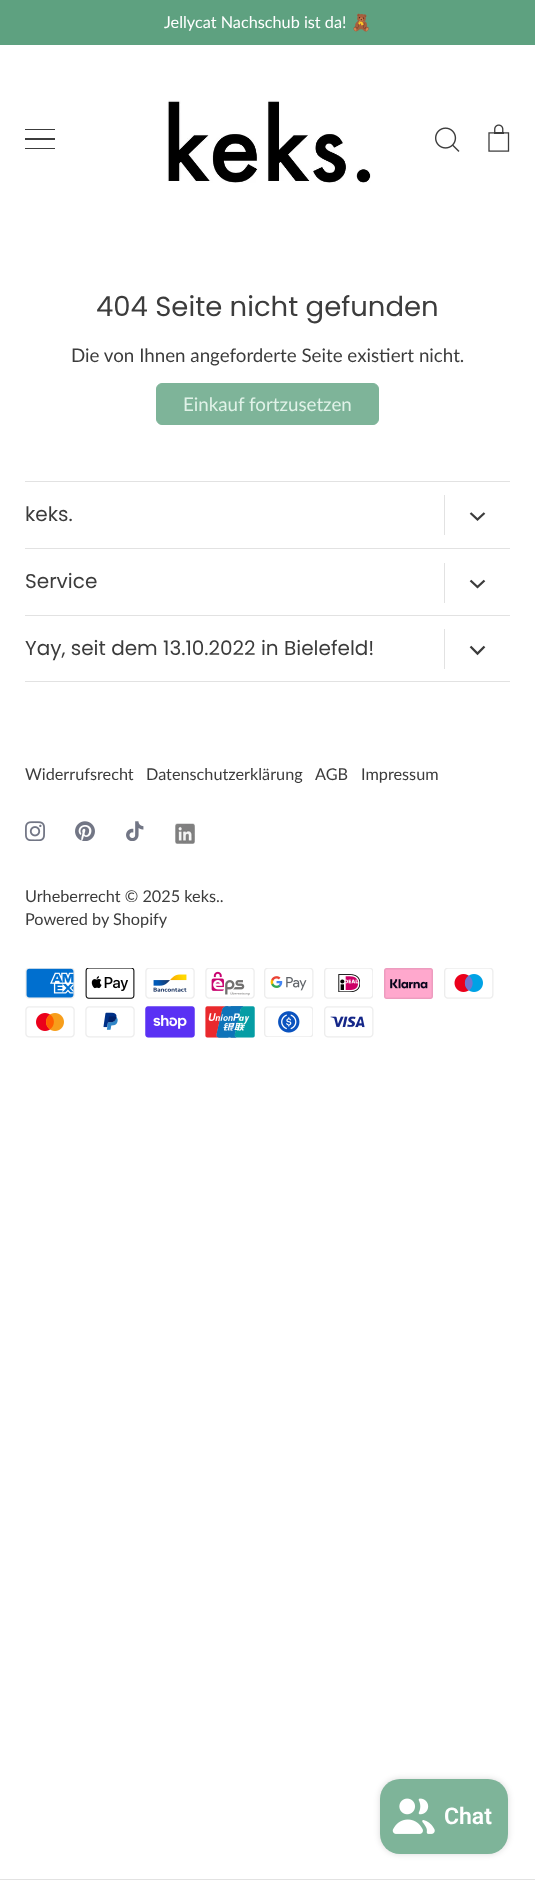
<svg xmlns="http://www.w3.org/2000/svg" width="535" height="1880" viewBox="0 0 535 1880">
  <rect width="100%" height="100%" fill="#fff"/>
  <path d="M0 0h535v45H0z" fill="#5ea180"/>
  <path d="M25 129h30v1H25z" fill="#3c3c3c"/>
  <path d="M25 138h30v2H25z" fill="#3c3c3c"/>
  <path d="M25 148h30v1H25z" fill="#3c3c3c"/>
  <image x="167" y="100" width="204" height="83" href="img/1.png"/>
  <image x="435" y="127" width="25" height="25" href="img/2.png"/>
  <image x="488" y="124" width="22" height="28" href="img/3.png"/>
  <path d="M0 1879h535v1H0z" fill="#e2e2e2"/>
  <rect x="156.5" y="383.5" width="222" height="41" rx="5.5" fill="#7eb499" stroke="#7eb499"/>
  <path d="M25 481h485v1H25z" fill="#e2e2e2"/>
  <path d="M25 548h485v1H25z" fill="#e2e2e2"/>
  <path d="M444 495h1v40H444z" fill="#e2e2e2"/>
  <path d="M470.5 513L477.5 519.5L484.5 513" fill="none" stroke="#3c3c3c" stroke-width="2.3"/>
  <path d="M25 615h485v1H25z" fill="#e2e2e2"/>
  <path d="M444 563h1v40H444z" fill="#e2e2e2"/>
  <path d="M470.5 580.5L477.5 587L484.5 580.5" fill="none" stroke="#3c3c3c" stroke-width="2.3"/>
  <path d="M25 681h485v1H25z" fill="#e2e2e2"/>
  <path d="M444 629h1v40H444z" fill="#e2e2e2"/>
  <path d="M470.5 646.5L477.5 653.5L484.5 646.5" fill="none" stroke="#3c3c3c" stroke-width="2.3"/>
  <image x="25" y="821" width="20" height="20" href="img/4.png"/>
  <image x="75" y="821" width="20" height="20" href="img/5.png"/>
  <image x="126" y="821" width="18" height="20" href="img/6.png"/>
  <image x="175" y="823" width="20" height="21" href="img/7.png"/>
  <image x="25" y="968" width="50" height="31" href="img/8.png"/>
  <image x="85" y="968" width="50" height="31" href="img/9.png"/>
  <image x="145" y="968" width="50" height="31" href="img/10.png"/>
  <image x="205" y="968" width="50" height="31" href="img/11.png"/>
  <image x="264" y="968" width="50" height="31" href="img/12.png"/>
  <image x="324" y="968" width="49" height="31" href="img/13.png"/>
  <image x="384" y="968" width="49" height="31" href="img/14.png"/>
  <image x="444" y="968" width="50" height="31" href="img/15.png"/>
  <image x="25" y="1006" width="50" height="32" href="img/16.png"/>
  <image x="85" y="1006" width="50" height="32" href="img/17.png"/>
  <image x="145" y="1006" width="50" height="32" href="img/18.png"/>
  <image x="205" y="1006" width="50" height="32" href="img/19.png"/>
  <image x="264" y="1006" width="49" height="31" href="img/20.png"/>
  <image x="324" y="1006" width="50" height="32" href="img/21.png"/>
  <rect x="380" y="1779" width="128" height="75" rx="20" fill="#00000026" filter="blur(3px)"/>
  <rect x="380" y="1779" width="128" height="75" rx="20" fill="#7eb499"/>
  <image x="392" y="1798" width="43" height="36" href="img/22.png"/>
  <text x="164" y="28" font-family="Lato" font-size="16.25" fill="#fff">Jellycat Nachschub ist da!</text>
  <text x="351" y="28" font-family="Noto Color Emoji" font-size="16.25" fill="#fff">🧸</text>
  <text x="96" y="316" font-family="Poppins" font-size="27.5" fill="#3c3c3c">404 Seite nicht gefunden</text>
  <text x="71" y="362" font-family="Lato" font-size="18.75" fill="#3c3c3c">Die von Ihnen angeforderte Seite existiert nicht.</text>
  <text x="183" y="411" font-family="Lato" font-size="18.75" fill="#e0f2e8">Einkauf fortzusetzen</text>
  <g font-family="Poppins" font-size="20" fill="#3c3c3c">
    <text x="25" y="521">keks.</text>
    <text x="25" y="588">Service</text>
    <text x="25" y="655">Yay, seit dem 13.10.2022 in Bielefeld!</text>
  </g>
  <g font-family="Lato" font-size="16.25" fill="#3c3c3c">
    <text x="25" y="780">Widerrufsrecht</text>
    <text x="146" y="780">Datenschutzerklärung</text>
    <text x="315" y="780">AGB</text>
    <text x="361" y="780">Impressum</text>
    <text x="25" y="902">Urheberrecht © 2025 keks..</text>
    <text x="25" y="925">Powered by Shopify</text>
  </g>
  <text x="444" y="1824" font-family="Roboto" font-size="23" font-weight="600" fill="#fff">Chat</text>
</svg>
